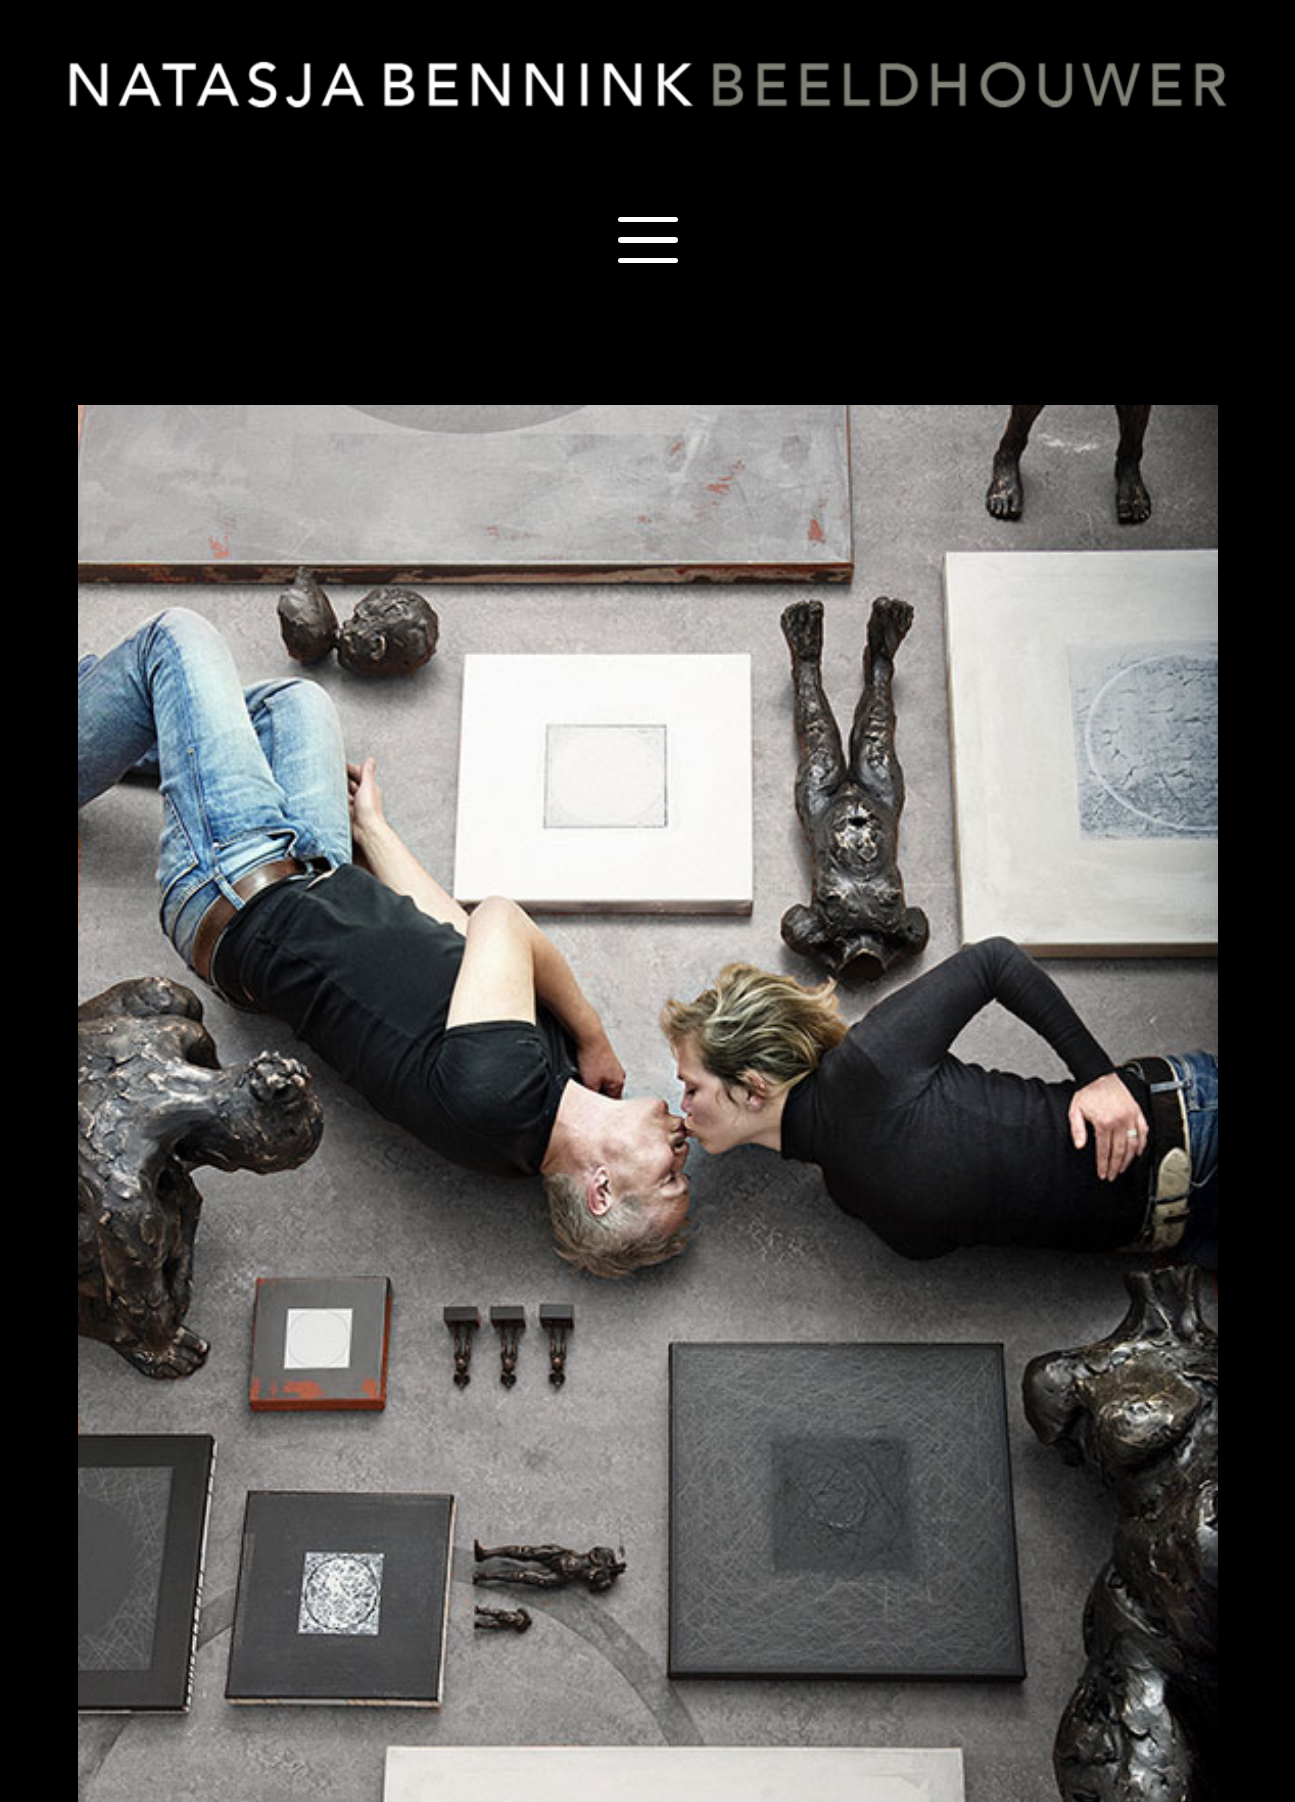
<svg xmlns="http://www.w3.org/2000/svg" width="1295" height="1802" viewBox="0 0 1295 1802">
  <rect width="100%" height="100%" fill="#000"/>
  <image x="69" y="61" width="1158" height="47" href="img/1.png"/>
  <rect x="618" y="217" width="60" height="5" rx="2.5" fill="#fff"/>
  <rect x="618" y="237" width="60" height="6" rx="3" fill="#fff"/>
  <rect x="618" y="258" width="60" height="5" rx="2.5" fill="#fff"/>
  <image x="78" y="405" width="1140" height="1397" href="img/2.png"/>
</svg>
